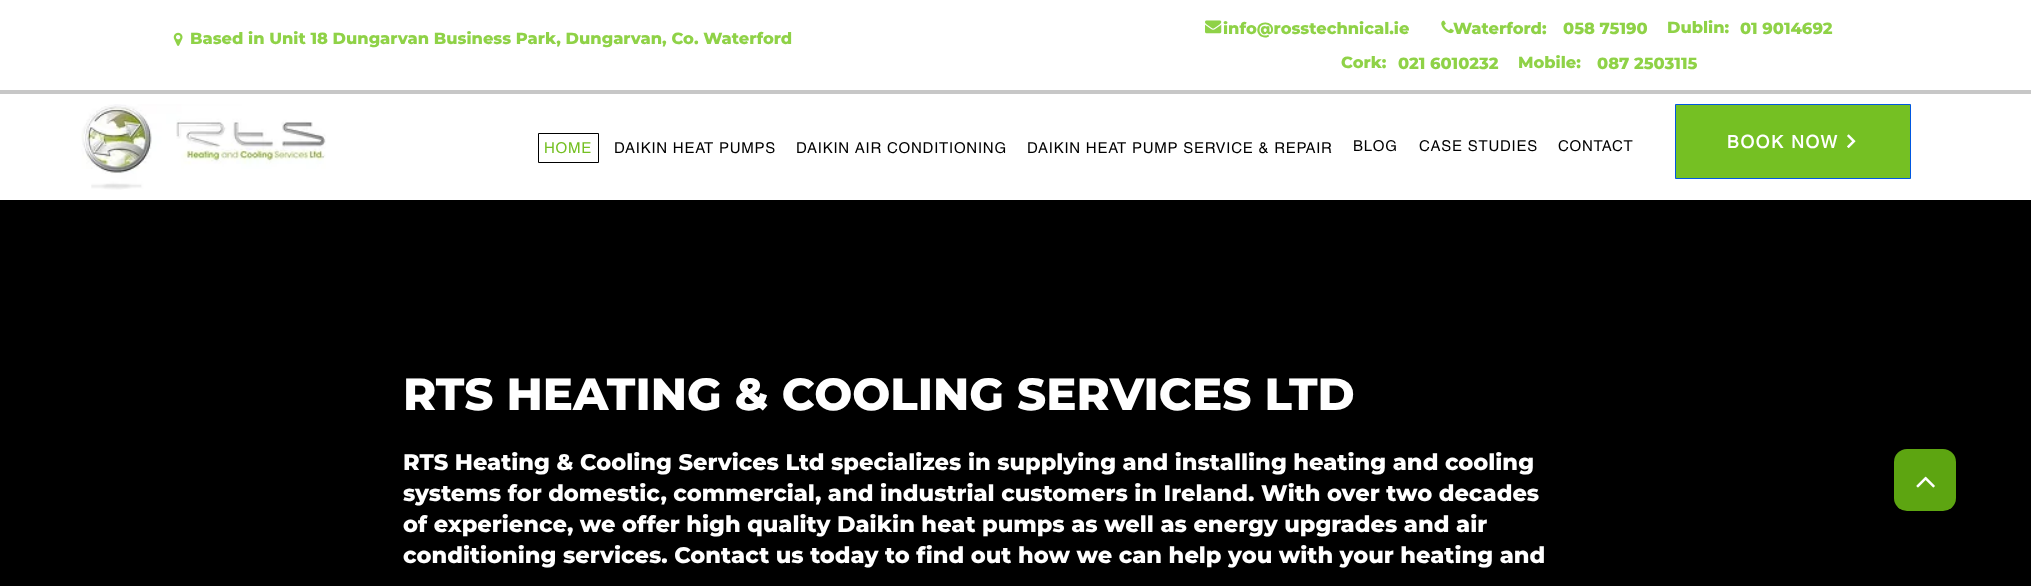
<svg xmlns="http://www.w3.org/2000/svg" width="2031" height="586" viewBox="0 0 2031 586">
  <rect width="100%" height="100%" fill="#000"/>
  <path d="M0 0h2031v90H0z" fill="#fff"/>
  <image x="173" y="32" width="10" height="14" href="img/1.png"/>
  <image x="1205" y="20" width="17" height="14" href="img/2.png"/>
  <image x="1441" y="20" width="13" height="14" href="img/3.png"/>
  <path d="M0 94h2031v106H0z" fill="#fff"/>
  <image x="81" y="104" width="245" height="86" href="img/4.png"/>
  <path d="M538.5 133.5h60v29H538.5z" fill="none" stroke="#000"/>
  <path d="M1675.5 104.5h235v74H1675.5z" fill="#75c023" stroke="#0057e1"/>
  <image x="1847" y="134" width="9" height="14" href="img/5.png"/>
  <path d="M0 90h2031v4H0z" fill="#c7c7c7"/>
  <rect x="1894" y="449" width="62" height="62" rx="13" fill="#5da511"/>
  <image x="1916" y="476" width="19" height="12" href="img/6.png"/>
  <g font-family="Montserrat" font-size="16.25" font-weight="800" fill="#8fd247">
    <text x="190" y="44">Based in Unit 18 Dungarvan Business Park, Dungarvan, Co. Waterford</text>
    <text x="1223" y="34">info@rosstechnical.ie</text>
    <text x="1453" y="34">Waterford:</text>
    <text x="1563" y="34">058 75190</text>
    <text x="1667" y="33">Dublin:</text>
    <text x="1740" y="34">01 9014692</text>
    <text x="1341" y="68">Cork:</text>
    <text x="1398" y="69">021 6010232</text>
    <text x="1518" y="68">Mobile:</text>
    <text x="1597" y="69">087 2503115</text>
  </g>
  <text x="544" y="153" font-family="helvetica" font-size="15" letter-spacing="0.75" fill="#75c023">HOME</text>
  <g font-family="helvetica" font-size="15" letter-spacing="0.75" fill="#000">
    <text x="614" y="153">DAIKIN HEAT PUMPS</text>
    <text x="796" y="153">DAIKIN AIR CONDITIONING</text>
    <text x="1027" y="153">DAIKIN HEAT PUMP SERVICE &amp; REPAIR</text>
    <text x="1353" y="151">BLOG</text>
    <text x="1419" y="151">CASE STUDIES</text>
    <text x="1558" y="151">CONTACT</text>
  </g>
  <text x="1727" y="148" font-family="helvetica" font-size="17.5" font-weight="bold" letter-spacing="1.75" fill="#fff">BOOK NOW</text>
  <text x="403" y="410" font-family="Montserrat" font-size="45" font-weight="800" fill="#fff">RTS HEATING &amp; COOLING SERVICES LTD</text>
  <g font-family="Montserrat" font-size="22.5" font-weight="800" fill="#fff">
    <text x="403" y="470">RTS Heating &amp; Cooling Services Ltd specializes in supplying and installing heating and cooling</text>
    <text x="403" y="501">systems for domestic, commercial, and industrial customers in Ireland. With over two decades</text>
    <text x="403" y="532">of experience, we offer high quality Daikin heat pumps as well as energy upgrades and air</text>
    <text x="403" y="563">conditioning services. Contact us today to find out how we can help you with your heating and</text>
  </g>
</svg>
